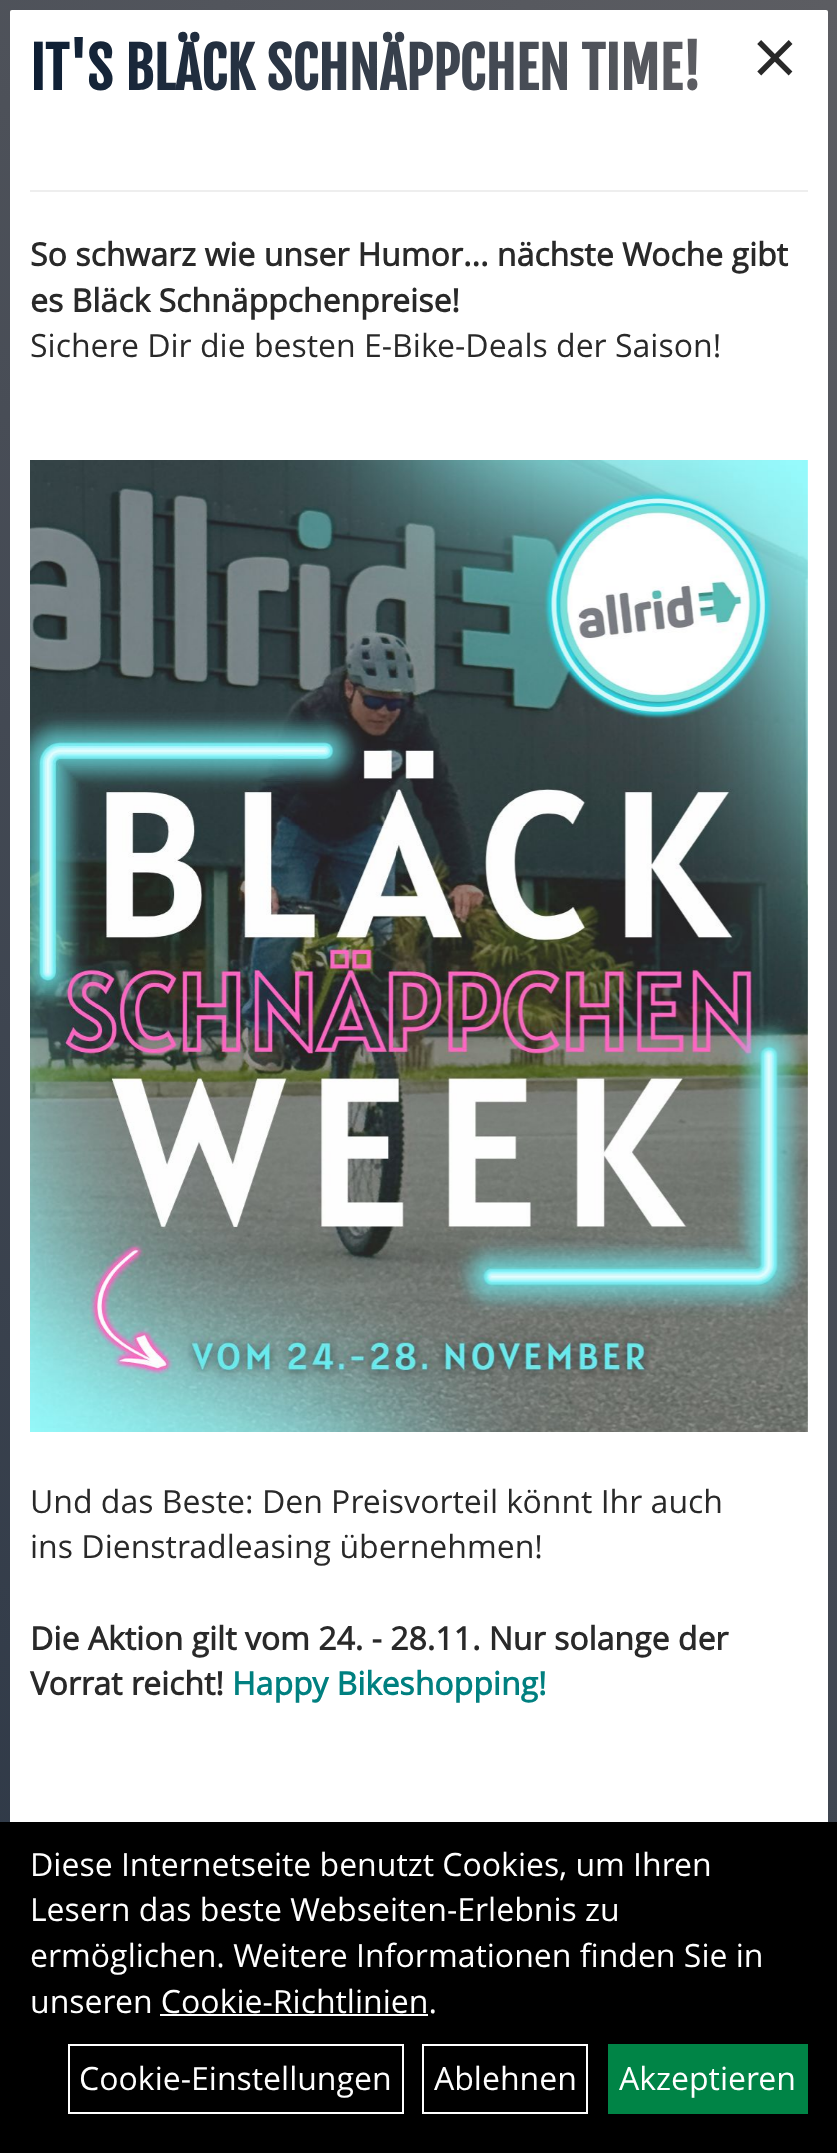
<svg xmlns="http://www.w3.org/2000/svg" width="837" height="2153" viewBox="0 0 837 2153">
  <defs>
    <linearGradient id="g1" gradientUnits="userSpaceOnUse" x1="30" y1="70" x2="701" y2="70"><stop offset="0" stop-color="#0d1e33"/><stop offset="1" stop-color="#5c5d62"/></linearGradient>
  </defs>
  <rect width="100%" height="100%" fill="#808080"/>
  <path d="M12 10H826C827 10 828 11 828 12V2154H10V12C10 11 11 10 12 10Z" fill="#fff"/>
  <image x="0" y="0" width="837" height="1822" href="img/1.png"/>
  <path d="M30 190h778v2H30z" fill="#eee"/>
  <image x="30" y="460" width="778" height="972" href="img/2.png"/>
  <path d="M0 1822h837v331H0z" fill="#000"/>
  <path d="M160 2014h268v2H160z" fill="#fff"/>
  <path d="M69 2045h334v68H69z" fill="none" stroke="#fff" stroke-width="2"/>
  <path d="M423 2045h164v68H423z" fill="none" stroke="#fff" stroke-width="2"/>
  <path d="M608 2044h200v70H608z" fill="#008446"/>
  <text x="30" y="90" font-family="Fjalla One" font-size="56" font-weight="bold" fill="url(#g1)">IT'S BLÄCK SCHNÄPPCHEN TIME!</text>
  <text x="752" y="86" font-family="Open Sans" font-size="80" fill="#292929">×</text>
  <g font-family="Open Sans" font-size="32" font-weight="bold" fill="#292929">
    <text x="30" y="266">So schwarz wie unser Humor... nächste Woche gibt</text>
    <text x="30" y="312">es Bläck Schnäppchenpreise!</text>
  </g>
  <g font-family="Open Sans" font-size="32" fill="#292929">
    <text x="30" y="357">Sichere Dir die besten E-Bike-Deals der Saison!</text>
    <text x="30" y="1513">Und das Beste: Den Preisvorteil könnt Ihr auch</text>
    <text x="30" y="1558">ins Dienstradleasing übernehmen!</text>
  </g>
  <g font-family="Open Sans" font-size="32" font-weight="bold" fill="#292929">
    <text x="30" y="1650">Die Aktion gilt vom 24. - 28.11. Nur solange der</text>
    <text x="30" y="1695">Vorrat reicht!</text>
  </g>
  <text x="232" y="1695" font-family="Open Sans" font-size="32" font-weight="bold" fill="#008080">Happy Bikeshopping!</text>
  <g font-family="Open Sans" font-size="32" fill="#fff">
    <text x="30" y="1876">Diese Internetseite benutzt Cookies, um Ihren</text>
    <text x="30" y="1921">Lesern das beste Webseiten-Erlebnis zu</text>
    <text x="30" y="1967">ermöglichen. Weitere Informationen finden Sie in</text>
    <text x="30" y="2013">unseren Cookie-Richtlinien.</text>
    <text x="79" y="2090">Cookie-Einstellungen</text>
    <text x="434" y="2090">Ablehnen</text>
    <text x="619" y="2090">Akzeptieren</text>
  </g>
</svg>
